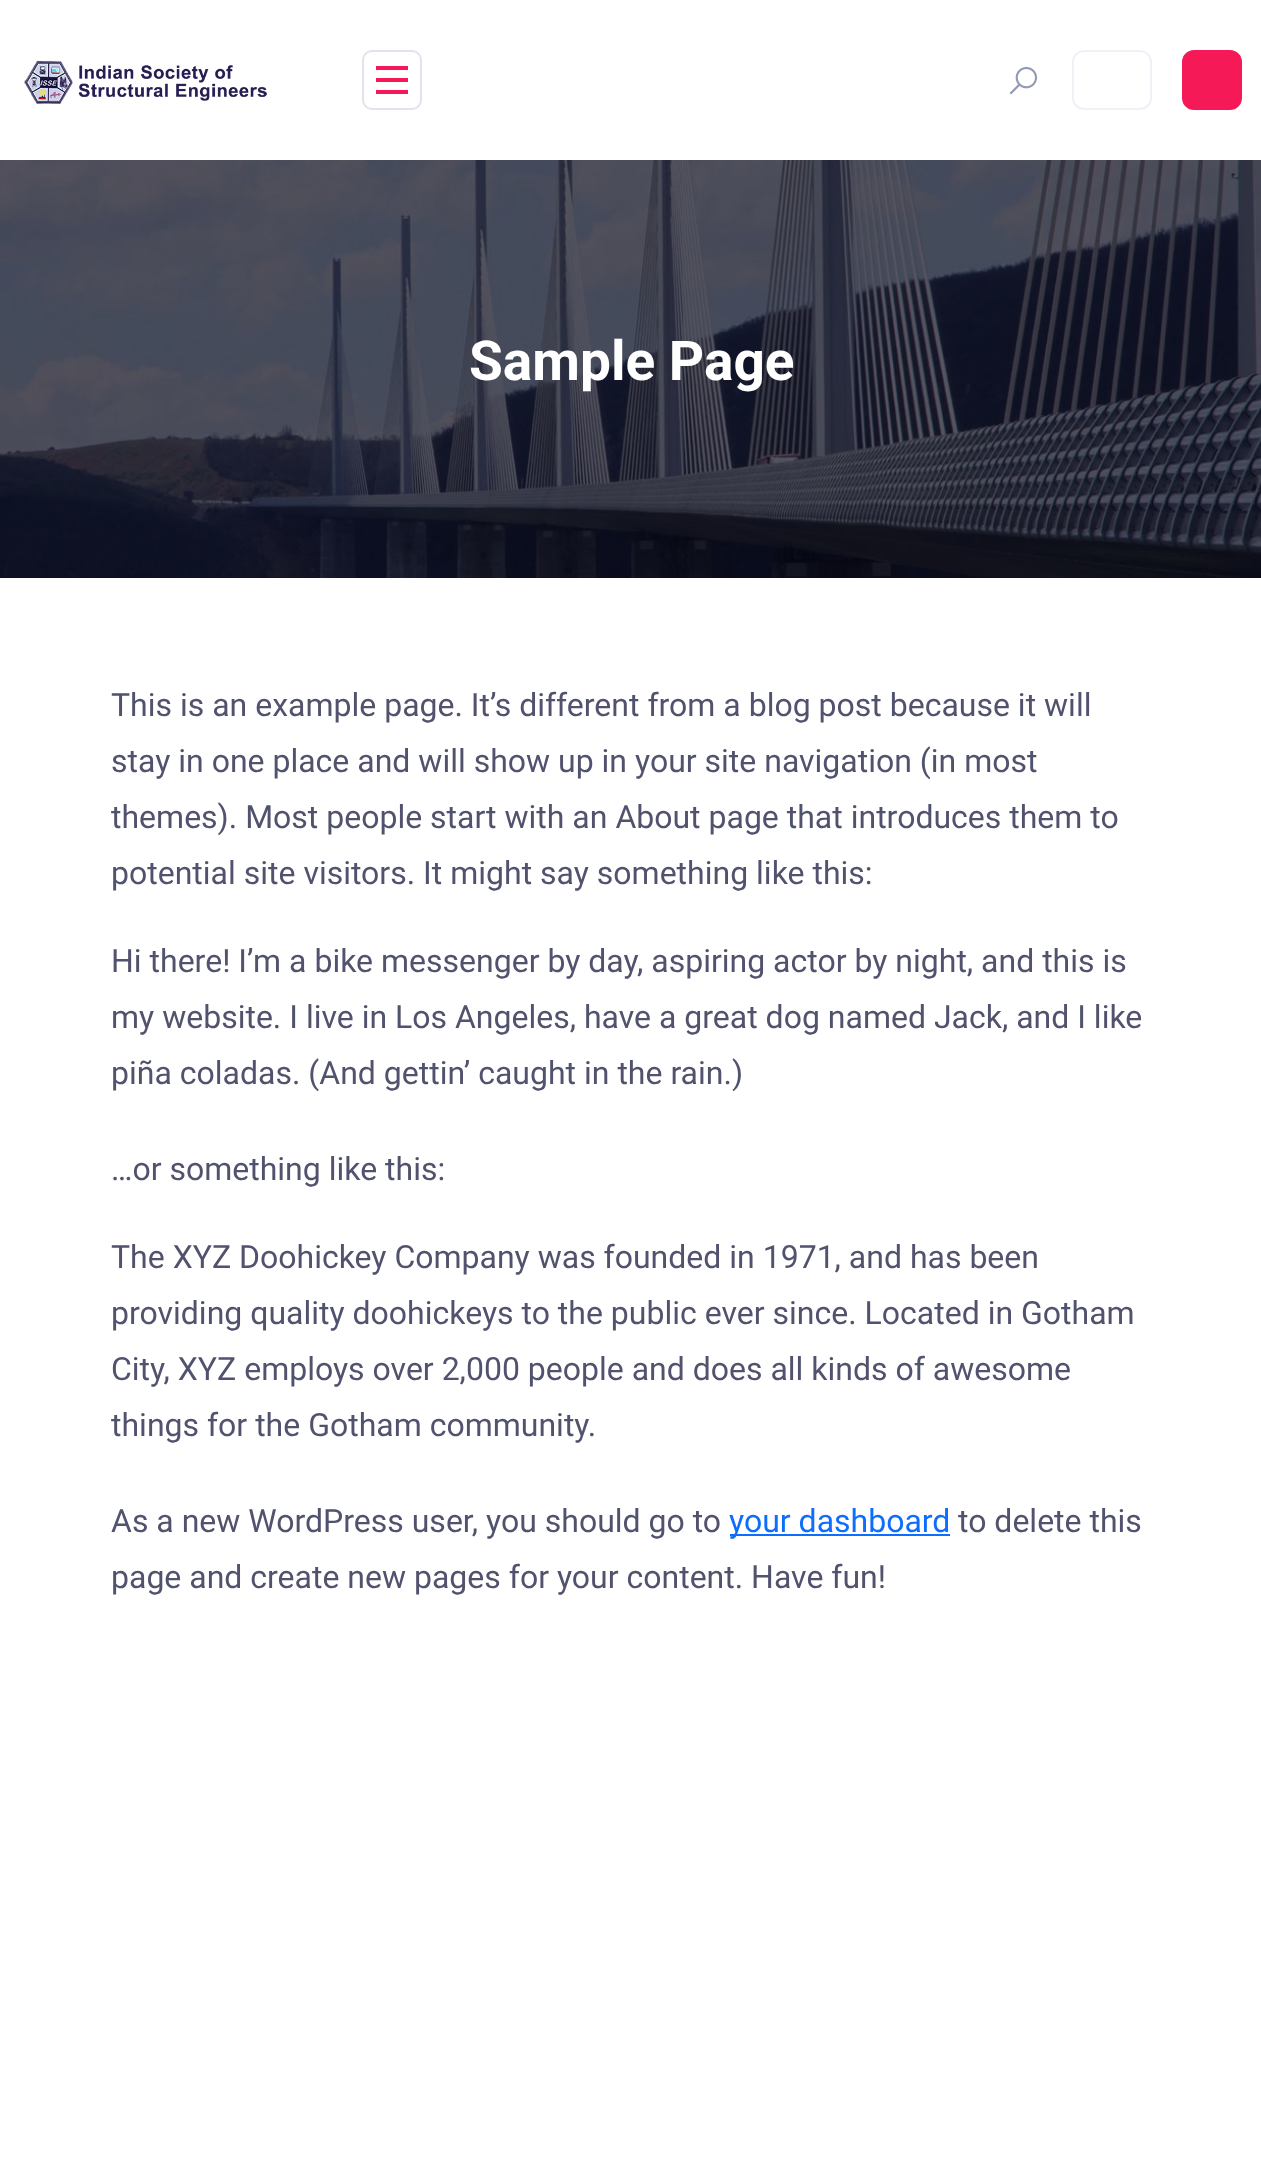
<svg xmlns="http://www.w3.org/2000/svg" width="1261" height="2160" viewBox="0 0 1261 2160">
  <rect width="100%" height="100%" fill="#fff"/>
  <image x="24" y="60" width="243" height="44" href="img/1.png"/>
  <rect x="363" y="51" width="58" height="58" rx="9" fill="none" stroke="#e1e4ec" stroke-width="2"/>
  <path d="M376 66h32v4H376z" fill="#f51957"/>
  <path d="M376 78h32v4H376z" fill="#f51957"/>
  <path d="M376 90h32v4H376z" fill="#f51957"/>
  <image x="1009" y="66" width="29" height="29" href="img/2.png"/>
  <rect x="1073" y="51" width="78" height="58" rx="11" fill="none" stroke="#eff1f6" stroke-width="2"/>
  <rect x="1183" y="51" width="58" height="58" rx="11" fill="#f51957" stroke="#f51957" stroke-width="2"/>
  <image x="0" y="160" width="1261" height="418" href="img/3.png"/>
  <path d="M730 1534h220v2H730z" fill="#0d6efd"/>
  <text x="469" y="380" font-family="Roboto" font-size="55" font-weight="bold" fill="#fff">Sample Page</text>
  <g font-family="Roboto" font-size="32" fill="#51526e">
    <text x="111" y="716">This is an example page. It’s different from a blog post because it will</text>
    <text x="111" y="772">stay in one place and will show up in your site navigation (in most</text>
    <text x="111" y="828">themes). Most people start with an About page that introduces them to</text>
    <text x="111" y="884">potential site visitors. It might say something like this:</text>
    <text x="111" y="972">Hi there! I’m a bike messenger by day, aspiring actor by night, and this is</text>
    <text x="111" y="1028">my website. I live in Los Angeles, have a great dog named Jack, and I like</text>
    <text x="111" y="1084">piña coladas. (And gettin’ caught in the rain.)</text>
    <text x="111" y="1180">…or something like this:</text>
    <text x="111" y="1268">The XYZ Doohickey Company was founded in 1971, and has been</text>
    <text x="111" y="1324">providing quality doohickeys to the public ever since. Located in Gotham</text>
    <text x="111" y="1380">City, XYZ employs over 2,000 people and does all kinds of awesome</text>
    <text x="111" y="1436">things for the Gotham community.</text>
    <text x="111" y="1532">As a new WordPress user, you should go to</text>
  </g>
  <text x="729" y="1532" font-family="Roboto" font-size="32" fill="#0d6efd">your dashboard</text>
  <g font-family="Roboto" font-size="32" fill="#51526e">
    <text x="958" y="1532">to delete this</text>
    <text x="111" y="1588">page and create new pages for your content. Have fun!</text>
  </g>
</svg>
